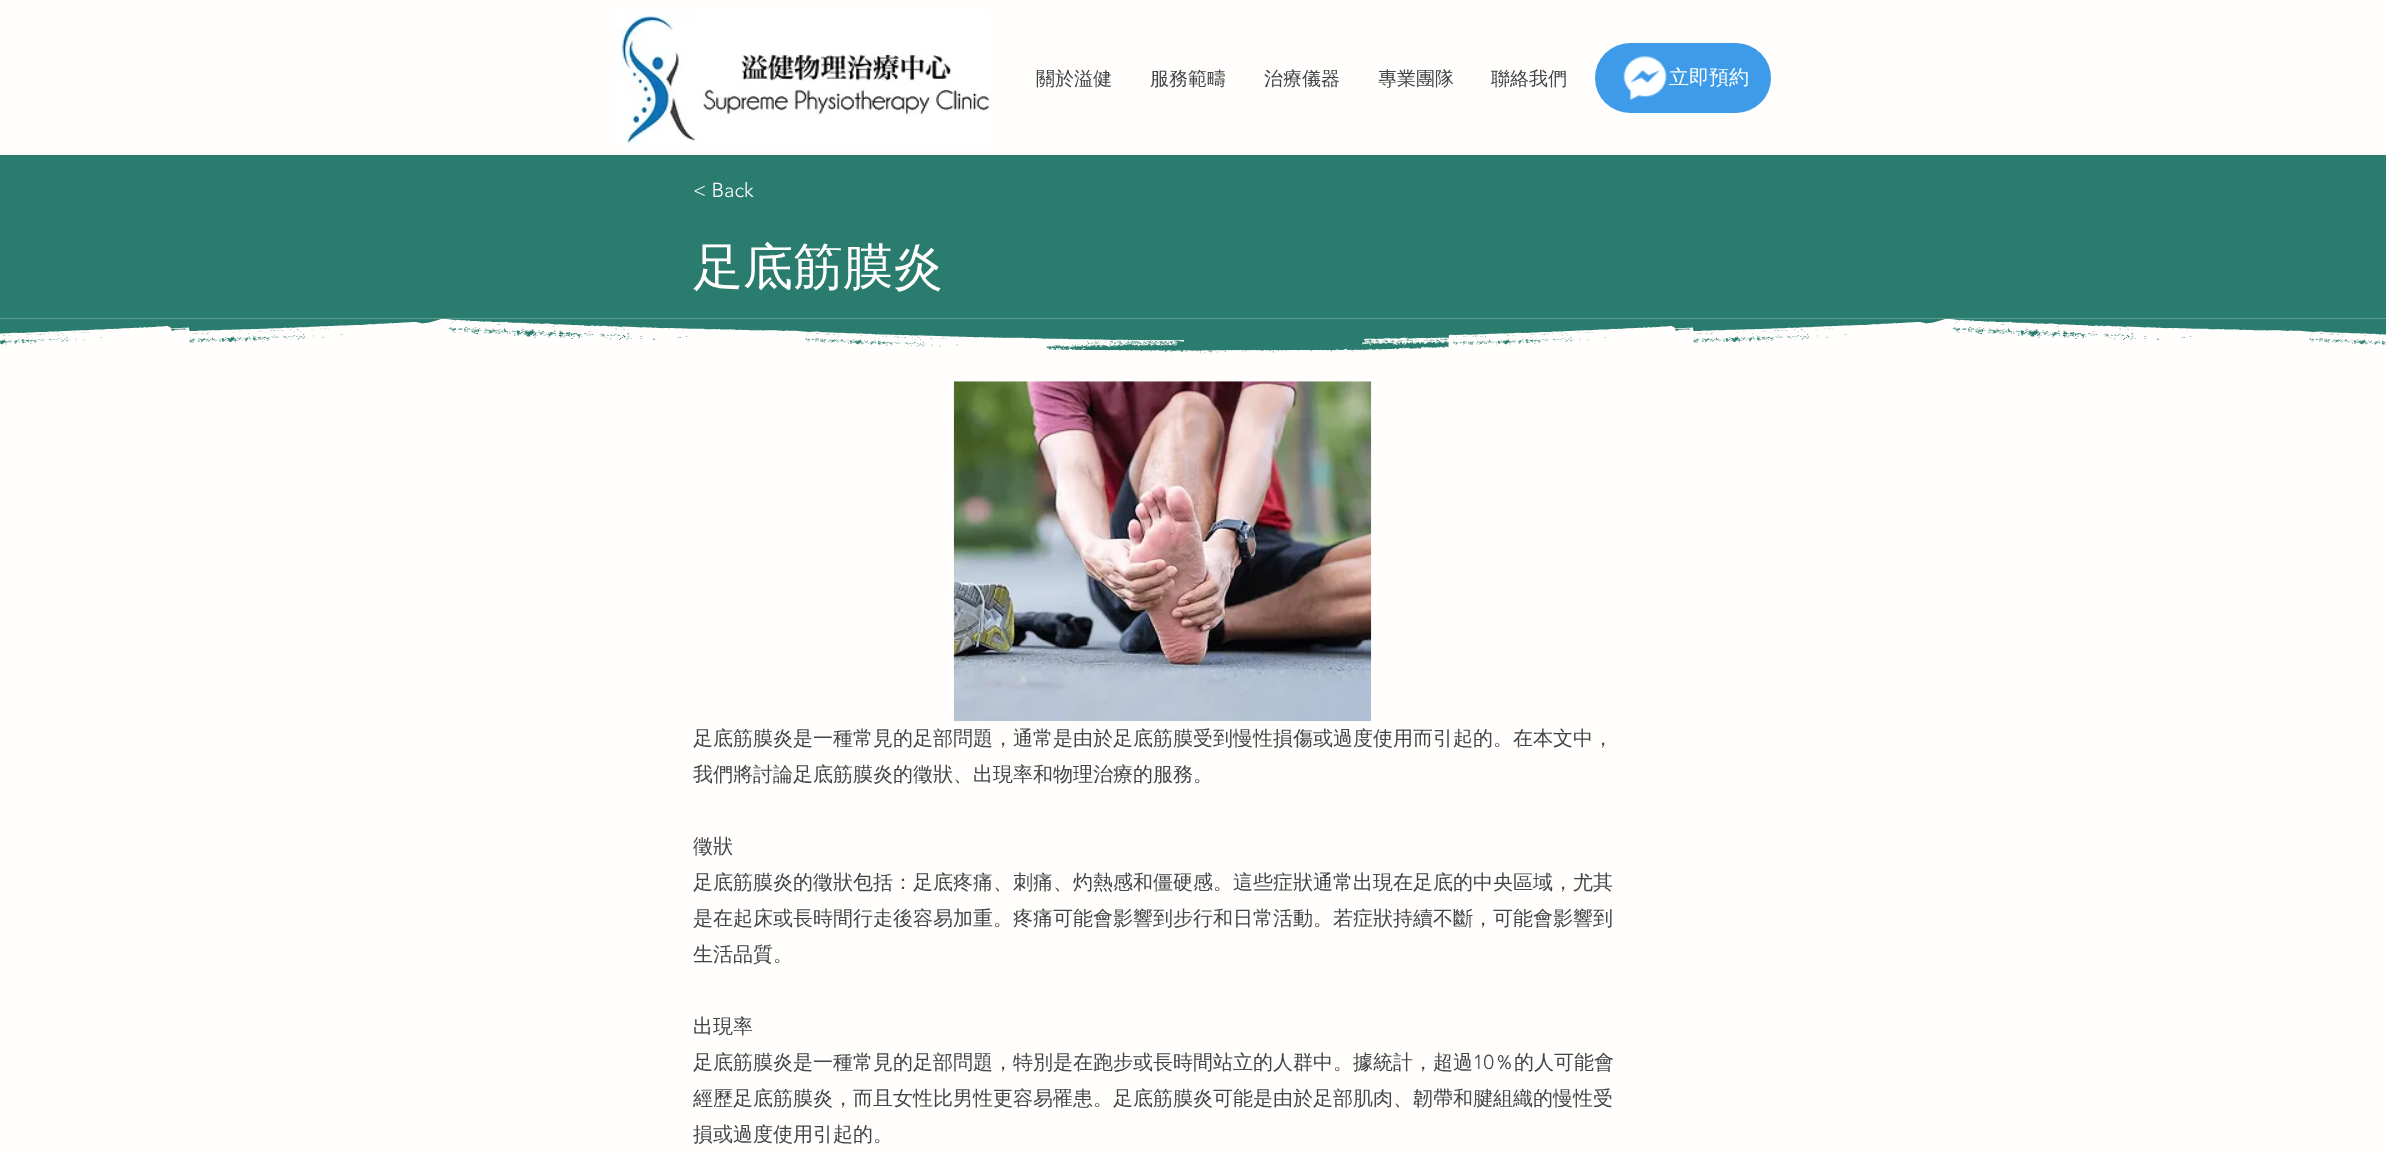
<svg xmlns="http://www.w3.org/2000/svg" width="2386" height="1154" viewBox="0 0 2386 1154">
  <rect width="100%" height="100%" fill="#2a7c6f"/>
  <path d="M0 0h2386v155H0z" fill="#fffefc"/>
  <image x="616" y="10" width="375" height="135" href="img/1.png"/>
  <rect x="1595" y="43" width="176" height="70" rx="35" fill="#3d9be9"/>
  <image x="1623" y="56" width="44" height="45" href="img/2.png"/>
  <image x="0" y="318" width="2386" height="47" href="img/3.png"/>
  <path d="M0 365h2386v789H0z" fill="#fffefc"/>
  <image x="953" y="381" width="419" height="341" href="img/4.png"/>
  <g font-family="WenQuanYi Zen Hei" font-size="19" font-weight="500" fill="#444">
    <text x="1036" y="85">關於溢健</text>
    <text x="1150" y="85">服務範疇</text>
    <text x="1264" y="85">治療儀器</text>
    <text x="1378" y="85">專業團隊</text>
    <text x="1491" y="85">聯絡我們</text>
  </g>
  <text x="1669" y="84" font-family="WenQuanYi Zen Hei" font-size="20" font-weight="500" fill="#fffefc">立即預約</text>
  <text x="693" y="197" font-family="'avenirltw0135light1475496'" font-size="20" font-weight="300" fill="#fffefc">&lt; Back</text>
  <text x="693" y="284" font-family="WenQuanYi Zen Hei" font-size="50" font-weight="500" fill="#fffefc">足底筋膜炎</text>
  <g font-family="WenQuanYi Zen Hei" font-size="20" font-weight="500" fill="#444">
    <text x="693" y="745">足底筋膜炎是一種常見的足部問題，通常是由於足底筋膜受到慢性損傷或過度使用而引起的。在本文中，</text>
    <text x="693" y="781">我們將討論足底筋膜炎的徵狀、出現率和物理治療的服務。</text>
    <text x="693" y="853">徵狀</text>
    <text x="693" y="889">足底筋膜炎的徵狀包括：足底疼痛、刺痛、灼熱感和僵硬感。這些症狀通常出現在足底的中央區域，尤其</text>
    <text x="693" y="925">是在起床或長時間行走後容易加重。疼痛可能會影響到步行和日常活動。若症狀持續不斷，可能會影響到</text>
    <text x="693" y="961">生活品質。</text>
    <text x="693" y="1033">出現率</text>
    <text x="693" y="1069">足底筋膜炎是一種常見的足部問題，特別是在跑步或長時間站立的人群中。據統計，超過</text>
  </g>
  <text x="1473" y="1069" font-family="'avenirltw0135light1475496'" font-size="20" font-weight="300" fill="#444">10</text>
  <g font-family="WenQuanYi Zen Hei" font-size="20" font-weight="500" fill="#444">
    <text x="1494" y="1069">％的人可能會</text>
    <text x="693" y="1105">經歷足底筋膜炎，而且女性比男性更容易罹患。足底筋膜炎可能是由於足部肌肉、韌帶和腱組織的慢性受</text>
    <text x="693" y="1141">損或過度使用引起的。</text>
  </g>
</svg>
